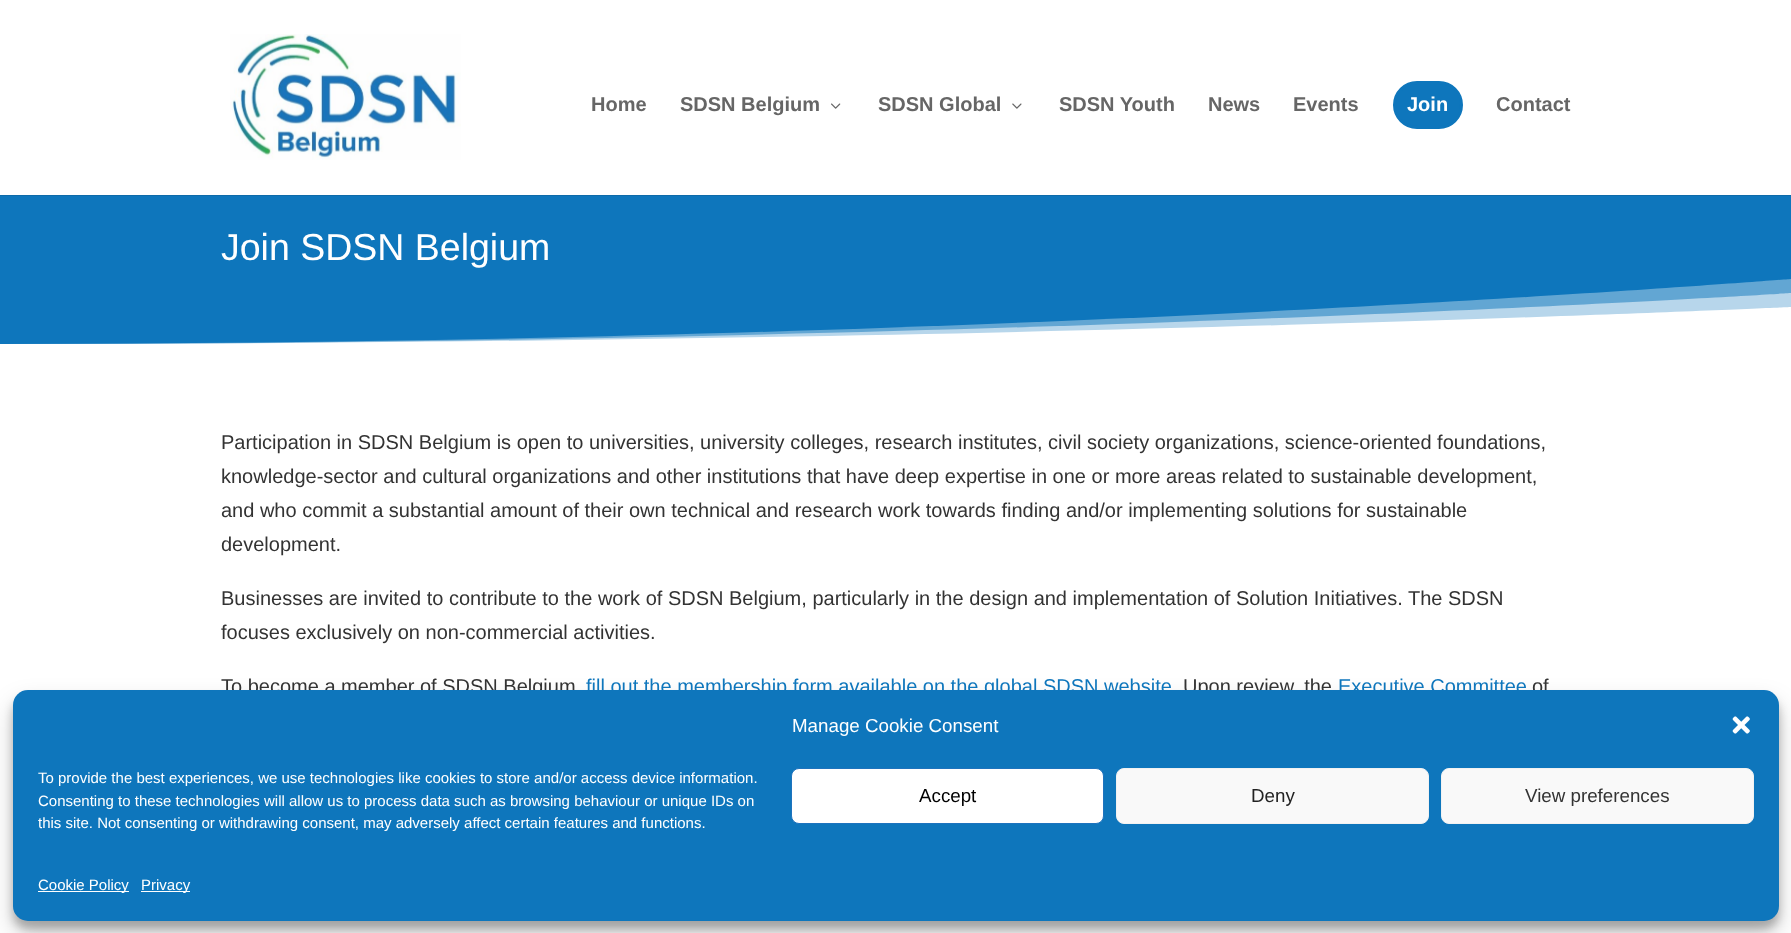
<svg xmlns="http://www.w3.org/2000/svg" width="1791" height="933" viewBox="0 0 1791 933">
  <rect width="100%" height="100%" fill="#fff"/>
  <path d="M0 195h1791v1H0z" fill="#0d6aa9"/>
  <image x="230" y="34" width="231" height="126" href="img/1.png"/>
  <image x="831" y="103" width="10" height="6" href="img/2.png"/>
  <image x="1012" y="103" width="10" height="6" href="img/3.png"/>
  <rect x="1394.5" y="82.5" width="67" height="45" rx="22.5" fill="#0e76bc" stroke="#0e76bc" stroke-width="3"/>
  <path d="M0 196h1791v83H0z" fill="#0e76bc"/>
  <path d="M1791 279V307C1791 307 989 344 0 344V279Z" fill="#b7d6eb"/>
  <path d="M1791 279V293C1791 293 989 344 0 344V279Z" fill="#0e76bc80"/>
  <path d="M1791 279C1791 279 989 344 0 344V279Z" fill="#0e76bc"/>
  <rect x="13" y="698" width="1766" height="231" rx="15" fill="#0000003b" filter="blur(4px)"/>
  <rect x="13" y="703" width="1766" height="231" rx="15" fill="#00000030" filter="blur(12.5px)"/>
  <g font-family="Liberation Sans" font-size="20" font-weight="bold" fill="#666">
    <text x="591" y="111">Home</text>
    <text x="680" y="111">SDSN Belgium</text>
    <text x="878" y="111">SDSN Global</text>
    <text x="1059" y="111">SDSN Youth</text>
    <text x="1208" y="111">News</text>
    <text x="1293" y="111">Events</text>
  </g>
  <text x="1407" y="111" font-family="Liberation Sans" font-size="20" font-weight="bold" fill="#fff">Join</text>
  <text x="1496" y="111" font-family="Liberation Sans" font-size="20" font-weight="bold" fill="#666">Contact</text>
  <text x="221" y="260" font-family="Liberation Sans" font-size="37.5" fill="#fff">Join SDSN Belgium</text>
  <g font-family="Liberation Sans" font-size="20" fill="#333">
    <text x="221" y="449">Participation in SDSN Belgium is open to universities, university colleges, research institutes, civil society organizations, science-oriented foundations,</text>
    <text x="221" y="483">knowledge-sector and cultural organizations and other institutions that have deep expertise in one or more areas related to sustainable development,</text>
    <text x="221" y="517">and who commit a substantial amount of their own technical and research work towards finding and/or implementing solutions for sustainable</text>
    <text x="221" y="551">development.</text>
    <text x="221" y="605">Businesses are invited to contribute to the work of SDSN Belgium, particularly in the design and implementation of Solution Initiatives. The SDSN</text>
    <text x="221" y="639">focuses exclusively on non-commercial activities.</text>
    <text x="221" y="693">To become a member of SDSN Belgium</text>
  </g>
  <text x="586" y="693" font-family="Liberation Sans" font-size="20" fill="#0e76bc">fill out the membership form available on the global SDSN website</text>
  <text x="1183" y="693" font-family="Liberation Sans" font-size="20" fill="#333">Upon review, the</text>
  <text x="1338" y="693" font-family="Liberation Sans" font-size="20" fill="#0e76bc">Executive Committee</text>
  <text x="1532" y="693" font-family="Liberation Sans" font-size="20" fill="#333">of</text>
  <rect x="13" y="690" width="1766" height="231" rx="15" fill="#0e76bc"/>
  <text x="792" y="732" font-family="Liberation Sans" font-size="18.75" fill="#fff">Manage Cookie Consent</text>
  <image x="1732" y="716" width="18" height="18" href="img/4.png"/>
  <g font-family="Liberation Sans" font-size="15" fill="#fff">
    <text x="38" y="783">To provide the best experiences, we use technologies like cookies to store and/or access device information.</text>
    <text x="38" y="806">Consenting to these technologies will allow us to process data such as browsing behaviour or unique IDs on</text>
    <text x="38" y="828">this site. Not consenting or withdrawing consent, may adversely affect certain features and functions.</text>
  </g>
  <rect x="791.5" y="768.5" width="312" height="55" rx="7.5" fill="#fff" stroke="#1e73be"/>
  <text x="919" y="802" font-family="Liberation Sans" font-size="18.75" fill="#000">Accept</text>
  <rect x="1116.5" y="768.5" width="312" height="55" rx="7.5" fill="#f9f9f9" stroke="#f2f2f2"/>
  <text x="1251" y="802" font-family="Liberation Sans" font-size="18.75" fill="#222">Deny</text>
  <rect x="1441.5" y="768.5" width="312" height="55" rx="7.5" fill="#f9f9f9" stroke="#f2f2f2"/>
  <text x="1525" y="802" font-family="Liberation Sans" font-size="18.75" fill="#333">View preferences</text>
  <path d="M38 891h91v1H38z" fill="#fff"/>
  <text x="38" y="890" font-family="Liberation Sans" font-size="15" fill="#fff">Cookie Policy</text>
  <path d="M141 891h49v1H141z" fill="#fff"/>
  <text x="141" y="890" font-family="Liberation Sans" font-size="15" fill="#fff">Privacy</text>
</svg>
